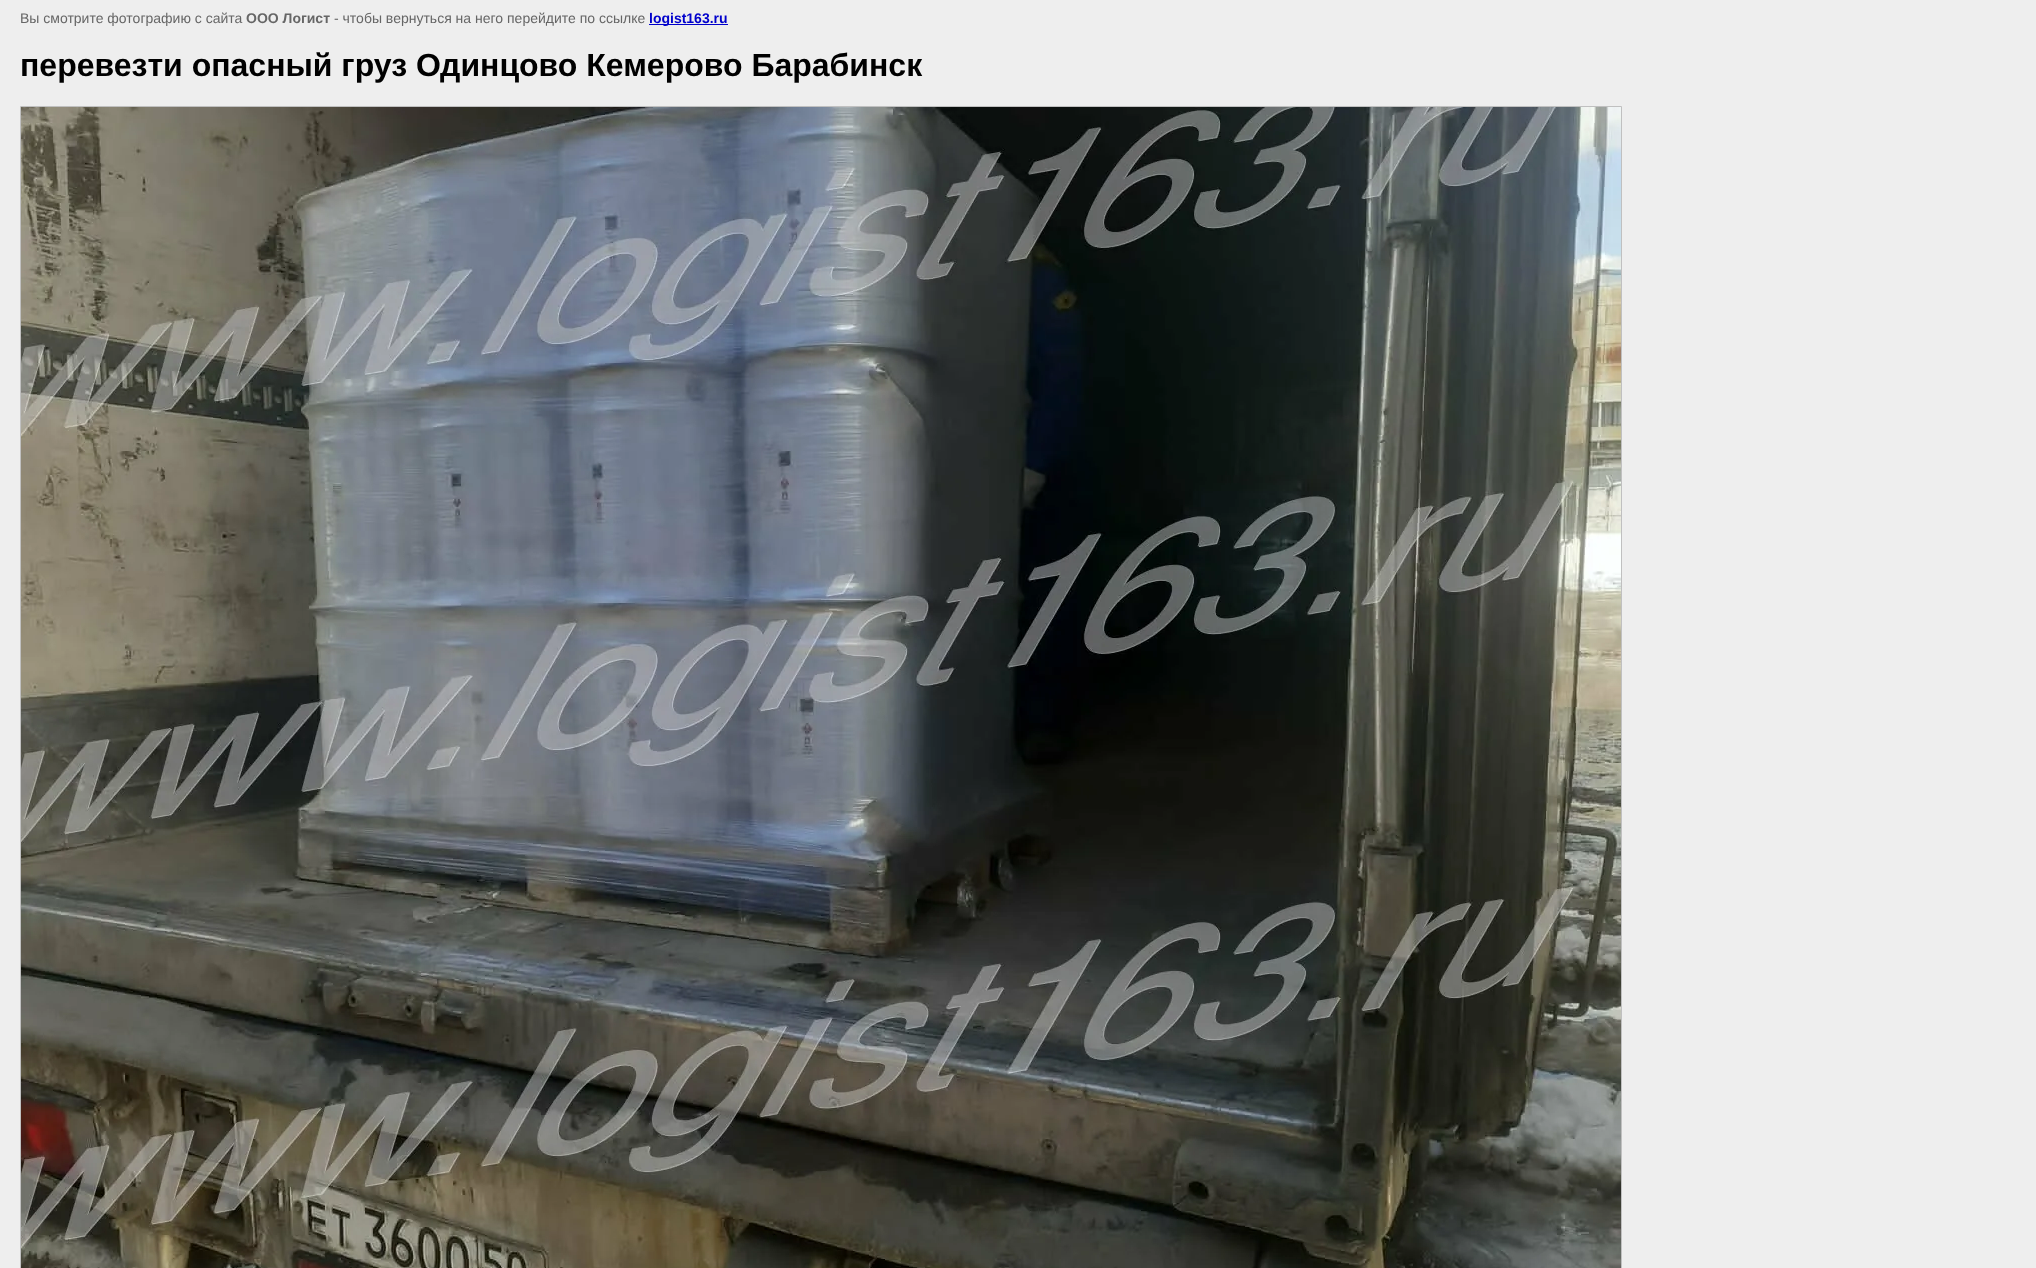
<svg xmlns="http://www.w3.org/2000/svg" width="2036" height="1268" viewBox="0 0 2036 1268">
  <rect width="100%" height="100%" fill="#eee"/>
  <path d="M649 24h79v1H649z" fill="#00c"/>
  <path d="M20.5 106.5h1601v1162H20.5z" fill="none" stroke="#c0c0c0"/>
  <image x="21" y="107" width="1600" height="1161" href="img/1.png"/>
  <text x="20" y="23" font-family="Liberation Sans" font-size="14" fill="#666">Вы смотрите фотографию с сайта</text>
  <text x="246" y="23" font-family="Liberation Sans" font-size="14" font-weight="bold" fill="#666">ООО Логист</text>
  <text x="334" y="23" font-family="Liberation Sans" font-size="14" fill="#666">- чтобы вернуться на него перейдите по ссылке</text>
  <text x="649" y="23" font-family="Liberation Sans" font-size="14" font-weight="bold" fill="#00c">logist163.ru</text>
  <text x="20" y="76" font-family="Liberation Sans" font-size="32" font-weight="bold" fill="#000">перевезти опасный груз Одинцово Кемерово Барабинск</text>
</svg>
